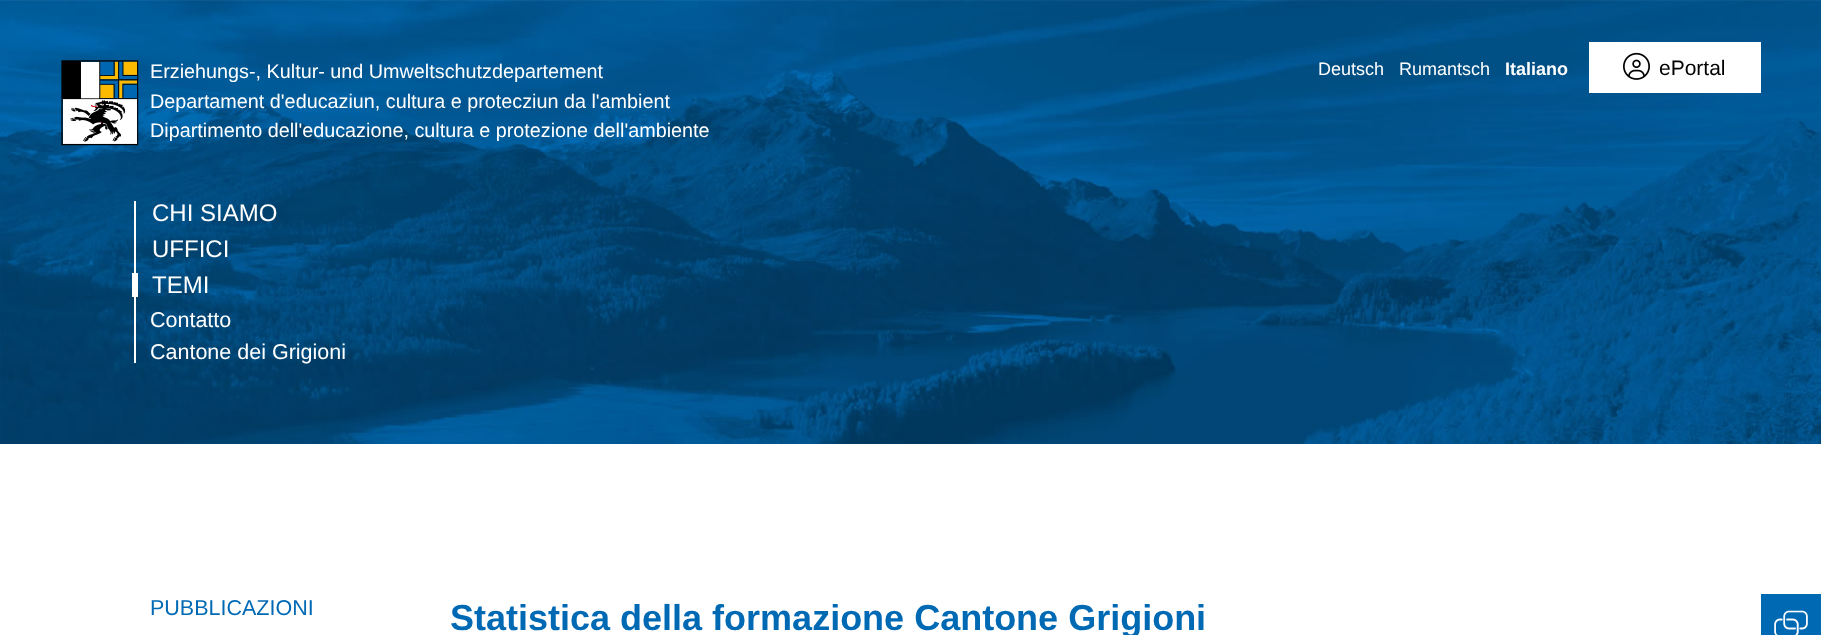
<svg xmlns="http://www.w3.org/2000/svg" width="1821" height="635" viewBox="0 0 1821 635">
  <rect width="100%" height="100%" fill="#fff"/>
  <image x="0" y="0" width="1821" height="444" href="img/1.png"/>
  <image x="61" y="60" width="78" height="86" href="img/2.png"/>
  <path d="M1589 42h172v51H1589z" fill="#fff"/>
  <image x="1623" y="52" width="27" height="28" href="img/3.png"/>
  <path d="M134 201h2v162H134z" fill="#fff"/>
  <path d="M132 273h6v24H132z" fill="#fff"/>
  <path d="M1761 594h60v41H1761z" fill="#0069b4"/>
  <image x="1774" y="610" width="34" height="25" href="img/4.png"/>
  <g font-family="Liberation Sans" font-size="19.8" fill="#fff">
    <text x="150" y="78">Erziehungs-, Kultur- und Umweltschutzdepartement</text>
    <text x="150" y="108">Departament d'educaziun, cultura e protecziun da l'ambient</text>
    <text x="150" y="137">Dipartimento dell'educazione, cultura e protezione dell'ambiente</text>
  </g>
  <g font-family="Liberation Sans" font-size="18" fill="#fff">
    <text x="1318" y="75">Deutsch</text>
    <text x="1399" y="75">Rumantsch</text>
  </g>
  <text x="1505" y="75" font-family="Liberation Sans" font-size="18" font-weight="bold" fill="#fff">Italiano</text>
  <text x="1659" y="75" font-family="Liberation Sans" font-size="21" fill="#000">ePortal</text>
  <g font-family="Liberation Sans" font-size="24" fill="#fff">
    <text x="152" y="221">CHI SIAMO</text>
    <text x="152" y="257">UFFICI</text>
    <text x="152" y="293">TEMI</text>
  </g>
  <g font-family="Liberation Sans" font-size="21.5" fill="#fff">
    <text x="150" y="327">Contatto</text>
    <text x="150" y="359">Cantone dei Grigioni</text>
  </g>
  <text x="150" y="615" font-family="Liberation Sans" font-size="21.5" fill="#0069b4">PUBBLICAZIONI</text>
  <text x="450" y="630" font-family="Liberation Sans" font-size="36" font-weight="bold" fill="#0069b4">Statistica della formazione Cantone Grigioni</text>
</svg>
